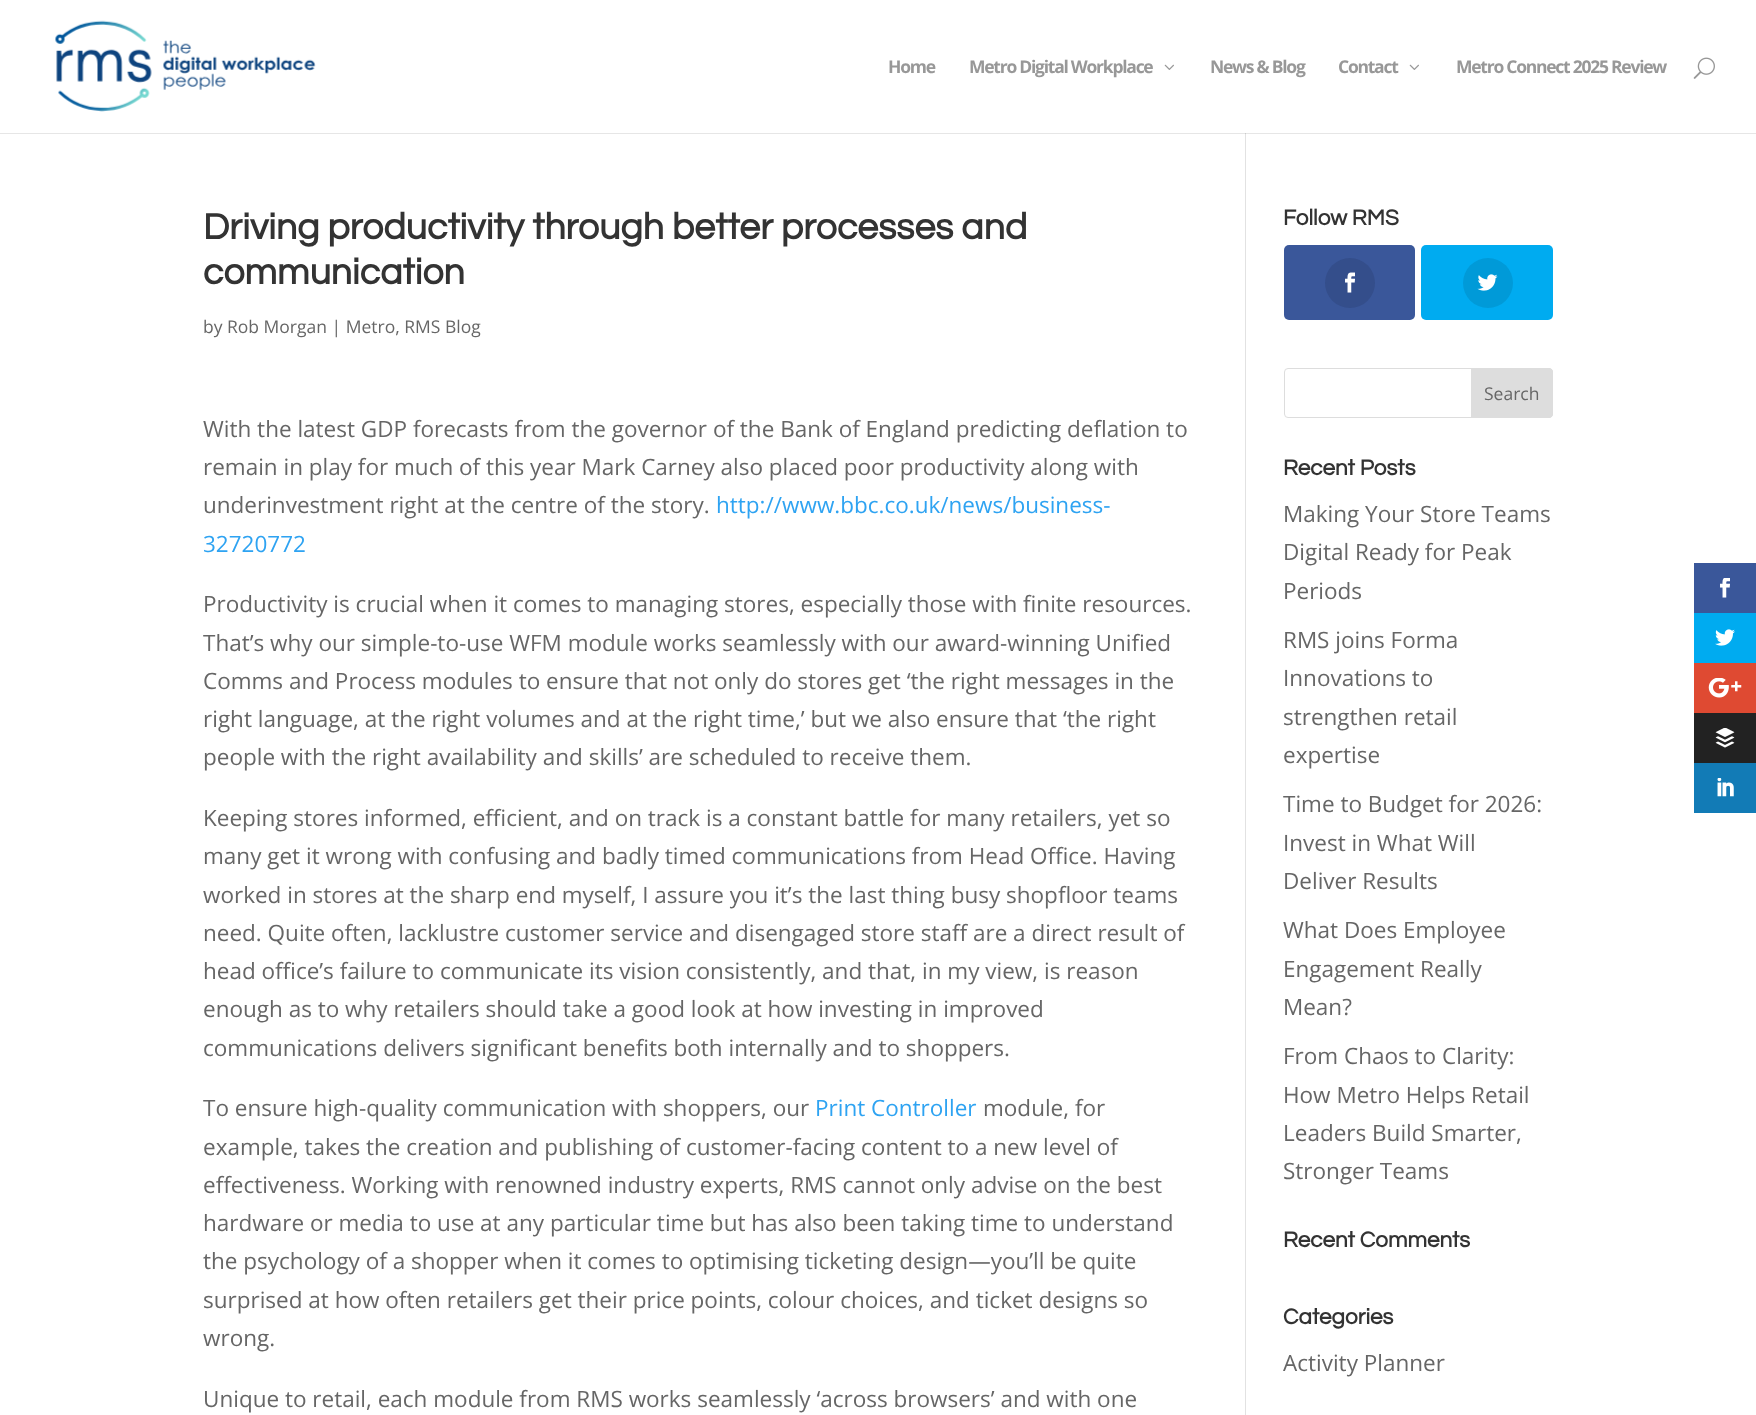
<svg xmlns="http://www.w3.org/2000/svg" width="1756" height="1415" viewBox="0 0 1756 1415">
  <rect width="100%" height="100%" fill="#fff"/>
  <path d="M0 133h1756v1H0z" fill="#e6e6e6"/>
  <image x="55" y="20" width="261" height="92" href="img/1.png"/>
  <image x="1164" y="64" width="10" height="6" href="img/2.png"/>
  <image x="1409" y="64" width="10" height="6" href="img/2.png"/>
  <image x="1693" y="57" width="22" height="22" href="img/3.png"/>
  <path d="M1245 133h1v1282H1245z" fill="#e2e2e2"/>
  <path d="M1245 133h1v1H1245z" fill="#cbcbcb"/>
  <rect x="1284" y="245" width="131" height="75" rx="5" fill="#3a579a"/>
  <circle cx="1350" cy="283" r="25" fill="#344e8b"/>
  <image x="1345" y="272" width="10" height="21" href="img/4.png"/>
  <rect x="1421" y="245" width="132" height="75" rx="5" fill="#00abf0"/>
  <circle cx="1488" cy="283" r="25" fill="#009ad8"/>
  <image x="1477" y="274" width="21" height="17" href="img/5.png"/>
  <rect x="1284.5" y="368.5" width="268" height="49" rx="3.5" fill="none" stroke="#ddd"/>
  <path d="M1471.5 368.5H1549C1551 368.5 1552.5 370 1552.5 372V414C1552.5 416 1551 417.5 1549 417.5H1471.5Z" fill="#ddd" stroke="#ddd"/>
  <path d="M1694 563h62v50H1694z" fill="#3a579a"/>
  <image x="1720" y="578" width="10" height="20" href="img/6.png"/>
  <path d="M1694 613h62v50H1694z" fill="#00abf0"/>
  <image x="1715" y="629" width="20" height="17" href="img/7.png"/>
  <path d="M1694 663h62v50H1694z" fill="#df4a32"/>
  <image x="1708" y="678" width="34" height="20" href="img/8.png"/>
  <path d="M1694 713h62v50H1694z" fill="#222"/>
  <image x="1715" y="728" width="20" height="20" href="img/9.png"/>
  <path d="M1694 763h62v50H1694z" fill="#127bb6"/>
  <image x="1717" y="778" width="17" height="19" href="img/10.png"/>
  <g font-family="Open Sans" font-size="17.5" font-weight="bold" letter-spacing="-1.25" fill="#989898">
    <text x="888" y="73">Home</text>
    <text x="969" y="73">Metro Digital Workplace</text>
    <text x="1210" y="73">News &amp; Blog</text>
    <text x="1338" y="73">Contact</text>
    <text x="1456" y="73">Metro Connect 2025 Review</text>
  </g>
  <g font-family="Questrial" font-size="37.5" font-weight="bold" fill="#333">
    <text x="203" y="239">Driving productivity through better processes and</text>
    <text x="203" y="284">communication</text>
  </g>
  <text x="203" y="333" font-family="Open Sans" font-size="17.5" fill="#666">by Rob Morgan | Metro, RMS Blog</text>
  <g font-family="Open Sans" font-size="22.5" fill="#666">
    <text x="203" y="437">With the latest GDP forecasts from the governor of the Bank of England predicting deflation to</text>
    <text x="203" y="475">remain in play for much of this year Mark Carney also placed poor productivity along with</text>
    <text x="203" y="513">underinvestment right at the centre of the story.</text>
  </g>
  <g font-family="Open Sans" font-size="22.5" fill="#2ea3f2">
    <text x="716" y="513">http://www.bbc.co.uk/news/business-</text>
    <text x="203" y="552">32720772</text>
  </g>
  <g font-family="Open Sans" font-size="22.5" fill="#666">
    <text x="203" y="612">Productivity is crucial when it comes to managing stores, especially those with finite resources.</text>
    <text x="203" y="651">That’s why our simple-to-use WFM module works seamlessly with our award-winning Unified</text>
    <text x="203" y="689">Comms and Process modules to ensure that not only do stores get ‘the right messages in the</text>
    <text x="203" y="727">right language, at the right volumes and at the right time,’ but we also ensure that ‘the right</text>
    <text x="203" y="765">people with the right availability and skills’ are scheduled to receive them.</text>
    <text x="203" y="826">Keeping stores informed, efficient, and on track is a constant battle for many retailers, yet so</text>
    <text x="203" y="864">many get it wrong with confusing and badly timed communications from Head Office. Having</text>
    <text x="203" y="903">worked in stores at the sharp end myself, I assure you it’s the last thing busy shopfloor teams</text>
    <text x="203" y="941">need. Quite often, lacklustre customer service and disengaged store staff are a direct result of</text>
    <text x="203" y="979">head office’s failure to communicate its vision consistently, and that, in my view, is reason</text>
    <text x="203" y="1017">enough as to why retailers should take a good look at how investing in improved</text>
    <text x="203" y="1056">communications delivers significant benefits both internally and to shoppers.</text>
    <text x="203" y="1116">To ensure high-quality communication with shoppers, our</text>
  </g>
  <text x="815" y="1116" font-family="Open Sans" font-size="22.5" fill="#2ea3f2">Print Controller</text>
  <g font-family="Open Sans" font-size="22.5" fill="#666">
    <text x="983" y="1116">module, for</text>
    <text x="203" y="1155">example, takes the creation and publishing of customer-facing content to a new level of</text>
    <text x="203" y="1193">effectiveness. Working with renowned industry experts, RMS cannot only advise on the best</text>
    <text x="203" y="1231">hardware or media to use at any particular time but has also been taking time to understand</text>
    <text x="203" y="1269">the psychology of a shopper when it comes to optimising ticketing design—you’ll be quite</text>
    <text x="203" y="1308">surprised at how often retailers get their price points, colour choices, and ticket designs so</text>
    <text x="203" y="1346">wrong.</text>
    <text x="203" y="1407">Unique to retail, each module from RMS works seamlessly ‘across browsers’ and with one</text>
  </g>
  <text x="1283" y="225" font-family="Questrial" font-size="22.5" font-weight="bold" fill="#333">Follow RMS</text>
  <text x="1484" y="400" font-family="Open Sans" font-size="17.5" fill="#666">Search</text>
  <text x="1283" y="475" font-family="Questrial" font-size="22.5" font-weight="bold" fill="#333">Recent Posts</text>
  <g font-family="Open Sans" font-size="22.5" fill="#666">
    <text x="1283" y="522">Making Your Store Teams</text>
    <text x="1283" y="560">Digital Ready for Peak</text>
    <text x="1283" y="599">Periods</text>
    <text x="1283" y="648">RMS joins Forma</text>
    <text x="1283" y="686">Innovations to</text>
    <text x="1283" y="725">strengthen retail</text>
    <text x="1283" y="763">expertise</text>
    <text x="1283" y="812">Time to Budget for 2026:</text>
    <text x="1283" y="851">Invest in What Will</text>
    <text x="1283" y="889">Deliver Results</text>
    <text x="1283" y="938">What Does Employee</text>
    <text x="1283" y="977">Engagement Really</text>
    <text x="1283" y="1015">Mean?</text>
    <text x="1283" y="1064">From Chaos to Clarity:</text>
    <text x="1283" y="1103">How Metro Helps Retail</text>
    <text x="1283" y="1141">Leaders Build Smarter,</text>
    <text x="1283" y="1179">Stronger Teams</text>
  </g>
  <g font-family="Questrial" font-size="22.5" font-weight="bold" fill="#333">
    <text x="1283" y="1247">Recent Comments</text>
    <text x="1283" y="1324">Categories</text>
  </g>
  <text x="1283" y="1371" font-family="Open Sans" font-size="22.5" fill="#666">Activity Planner</text>
</svg>
